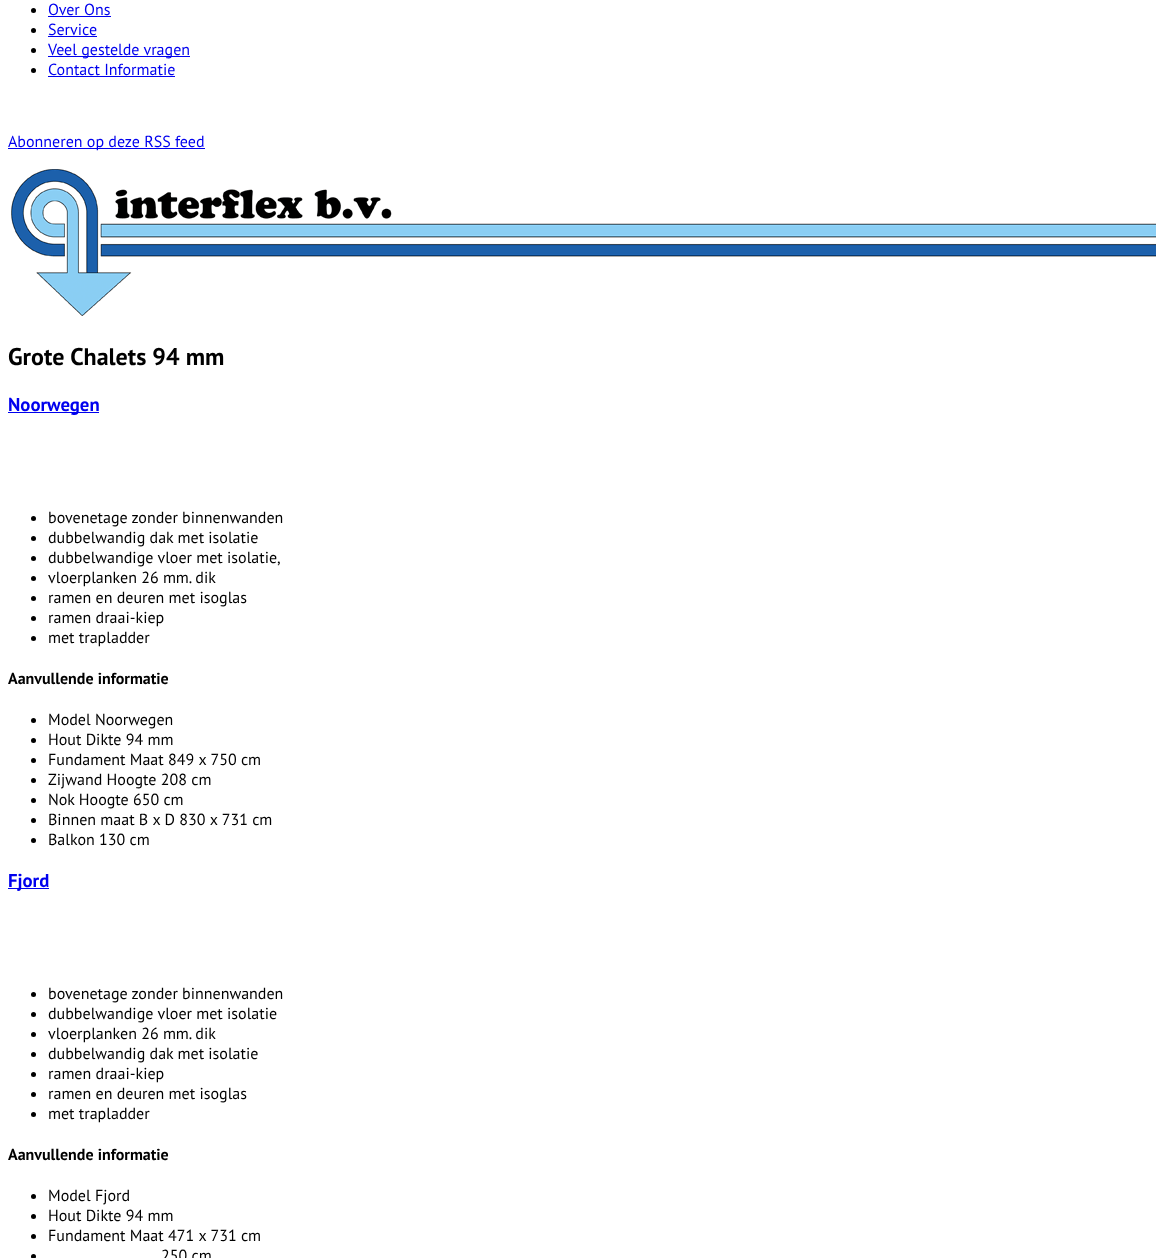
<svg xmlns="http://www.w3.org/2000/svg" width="1156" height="1258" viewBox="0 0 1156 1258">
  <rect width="100%" height="100%" fill="#fff"/>
  <circle cx="33.5" cy="10.5" r="2.5" fill="#000"/>
  <path d="M48 16h63v1H48z" fill="#00e"/>
  <circle cx="33.5" cy="30.5" r="2.5" fill="#000"/>
  <path d="M48 36h49v1H48z" fill="#00e"/>
  <circle cx="33.5" cy="50.5" r="2.5" fill="#000"/>
  <path d="M48 56h142v1H48z" fill="#00e"/>
  <circle cx="33.5" cy="70.5" r="2.5" fill="#000"/>
  <path d="M48 76h127v1H48z" fill="#00e"/>
  <path d="M8 148h197v1H8z" fill="#00e"/>
  <image x="11" y="169" width="1145" height="147" href="img/1.png"/>
  <path d="M8 412h91v1H8z" fill="#00e"/>
  <circle cx="33.5" cy="518.5" r="2.5" fill="#000"/>
  <circle cx="33.5" cy="538.5" r="2.5" fill="#000"/>
  <circle cx="33.5" cy="558.5" r="2.5" fill="#000"/>
  <circle cx="33.5" cy="578.5" r="2.5" fill="#000"/>
  <circle cx="33.5" cy="598.5" r="2.5" fill="#000"/>
  <circle cx="33.5" cy="618.5" r="2.5" fill="#000"/>
  <circle cx="33.5" cy="638.5" r="2.5" fill="#000"/>
  <circle cx="33.5" cy="720.5" r="2.5" fill="#000"/>
  <circle cx="33.5" cy="740.5" r="2.5" fill="#000"/>
  <circle cx="33.5" cy="760.5" r="2.5" fill="#000"/>
  <circle cx="33.5" cy="780.5" r="2.5" fill="#000"/>
  <circle cx="33.5" cy="800.5" r="2.5" fill="#000"/>
  <circle cx="33.5" cy="820.5" r="2.5" fill="#000"/>
  <circle cx="33.5" cy="840.5" r="2.5" fill="#000"/>
  <path d="M8 888h41v1H8z" fill="#00e"/>
  <circle cx="33.5" cy="994.5" r="2.5" fill="#000"/>
  <circle cx="33.5" cy="1014.5" r="2.5" fill="#000"/>
  <circle cx="33.5" cy="1034.5" r="2.5" fill="#000"/>
  <circle cx="33.5" cy="1054.5" r="2.5" fill="#000"/>
  <circle cx="33.5" cy="1074.5" r="2.5" fill="#000"/>
  <circle cx="33.5" cy="1094.5" r="2.5" fill="#000"/>
  <circle cx="33.5" cy="1114.5" r="2.5" fill="#000"/>
  <circle cx="33.5" cy="1196.5" r="2.5" fill="#000"/>
  <circle cx="33.5" cy="1216.5" r="2.5" fill="#000"/>
  <circle cx="33.5" cy="1236.5" r="2.5" fill="#000"/>
  <circle cx="33.5" cy="1256.5" r="2.5" fill="#000"/>
  <g font-family="PT Sans" font-size="16" fill="#00e">
    <text x="48" y="15">Over Ons</text>
    <text x="48" y="35">Service</text>
    <text x="48" y="55">Veel gestelde vragen</text>
    <text x="48" y="75">Contact Informatie</text>
    <text x="8" y="147">Abonneren op deze RSS feed</text>
  </g>
  <text x="8" y="365" font-family="PT Sans" font-size="24" font-weight="bold" fill="#000">Grote Chalets 94 mm</text>
  <text x="8" y="411" font-family="PT Sans" font-size="18.75" font-weight="bold" fill="#00e">Noorwegen</text>
  <g font-family="PT Sans" font-size="16" fill="#000">
    <text x="48" y="523">bovenetage zonder binnenwanden</text>
    <text x="48" y="543">dubbelwandig dak met isolatie</text>
    <text x="48" y="563">dubbelwandige vloer met isolatie,</text>
    <text x="48" y="583">vloerplanken 26 mm. dik</text>
    <text x="48" y="603">ramen en deuren met isoglas</text>
    <text x="48" y="623">ramen draai-kiep</text>
    <text x="48" y="643">met trapladder</text>
  </g>
  <text x="8" y="684" font-family="PT Sans" font-size="16" font-weight="bold" fill="#000">Aanvullende informatie</text>
  <g font-family="PT Sans" font-size="16" fill="#000">
    <text x="48" y="725">Model Noorwegen</text>
    <text x="48" y="745">Hout Dikte 94 mm</text>
    <text x="48" y="765">Fundament Maat 849 x 750 cm</text>
    <text x="48" y="785">Zijwand Hoogte 208 cm</text>
    <text x="48" y="805">Nok Hoogte 650 cm</text>
    <text x="48" y="825">Binnen maat B x D 830 x 731 cm</text>
    <text x="48" y="845">Balkon 130 cm</text>
  </g>
  <text x="8" y="887" font-family="PT Sans" font-size="18.75" font-weight="bold" fill="#00e">Fjord</text>
  <g font-family="PT Sans" font-size="16" fill="#000">
    <text x="48" y="999">bovenetage zonder binnenwanden</text>
    <text x="48" y="1019">dubbelwandige vloer met isolatie</text>
    <text x="48" y="1039">vloerplanken 26 mm. dik</text>
    <text x="48" y="1059">dubbelwandig dak met isolatie</text>
    <text x="48" y="1079">ramen draai-kiep</text>
    <text x="48" y="1099">ramen en deuren met isoglas</text>
    <text x="48" y="1119">met trapladder</text>
  </g>
  <text x="8" y="1160" font-family="PT Sans" font-size="16" font-weight="bold" fill="#000">Aanvullende informatie</text>
  <g font-family="PT Sans" font-size="16" fill="#000">
    <text x="48" y="1201">Model Fjord</text>
    <text x="48" y="1221">Hout Dikte 94 mm</text>
    <text x="48" y="1241">Fundament Maat 471 x 731 cm</text>
    <text x="161" y="1261">250 cm</text>
  </g>
</svg>
